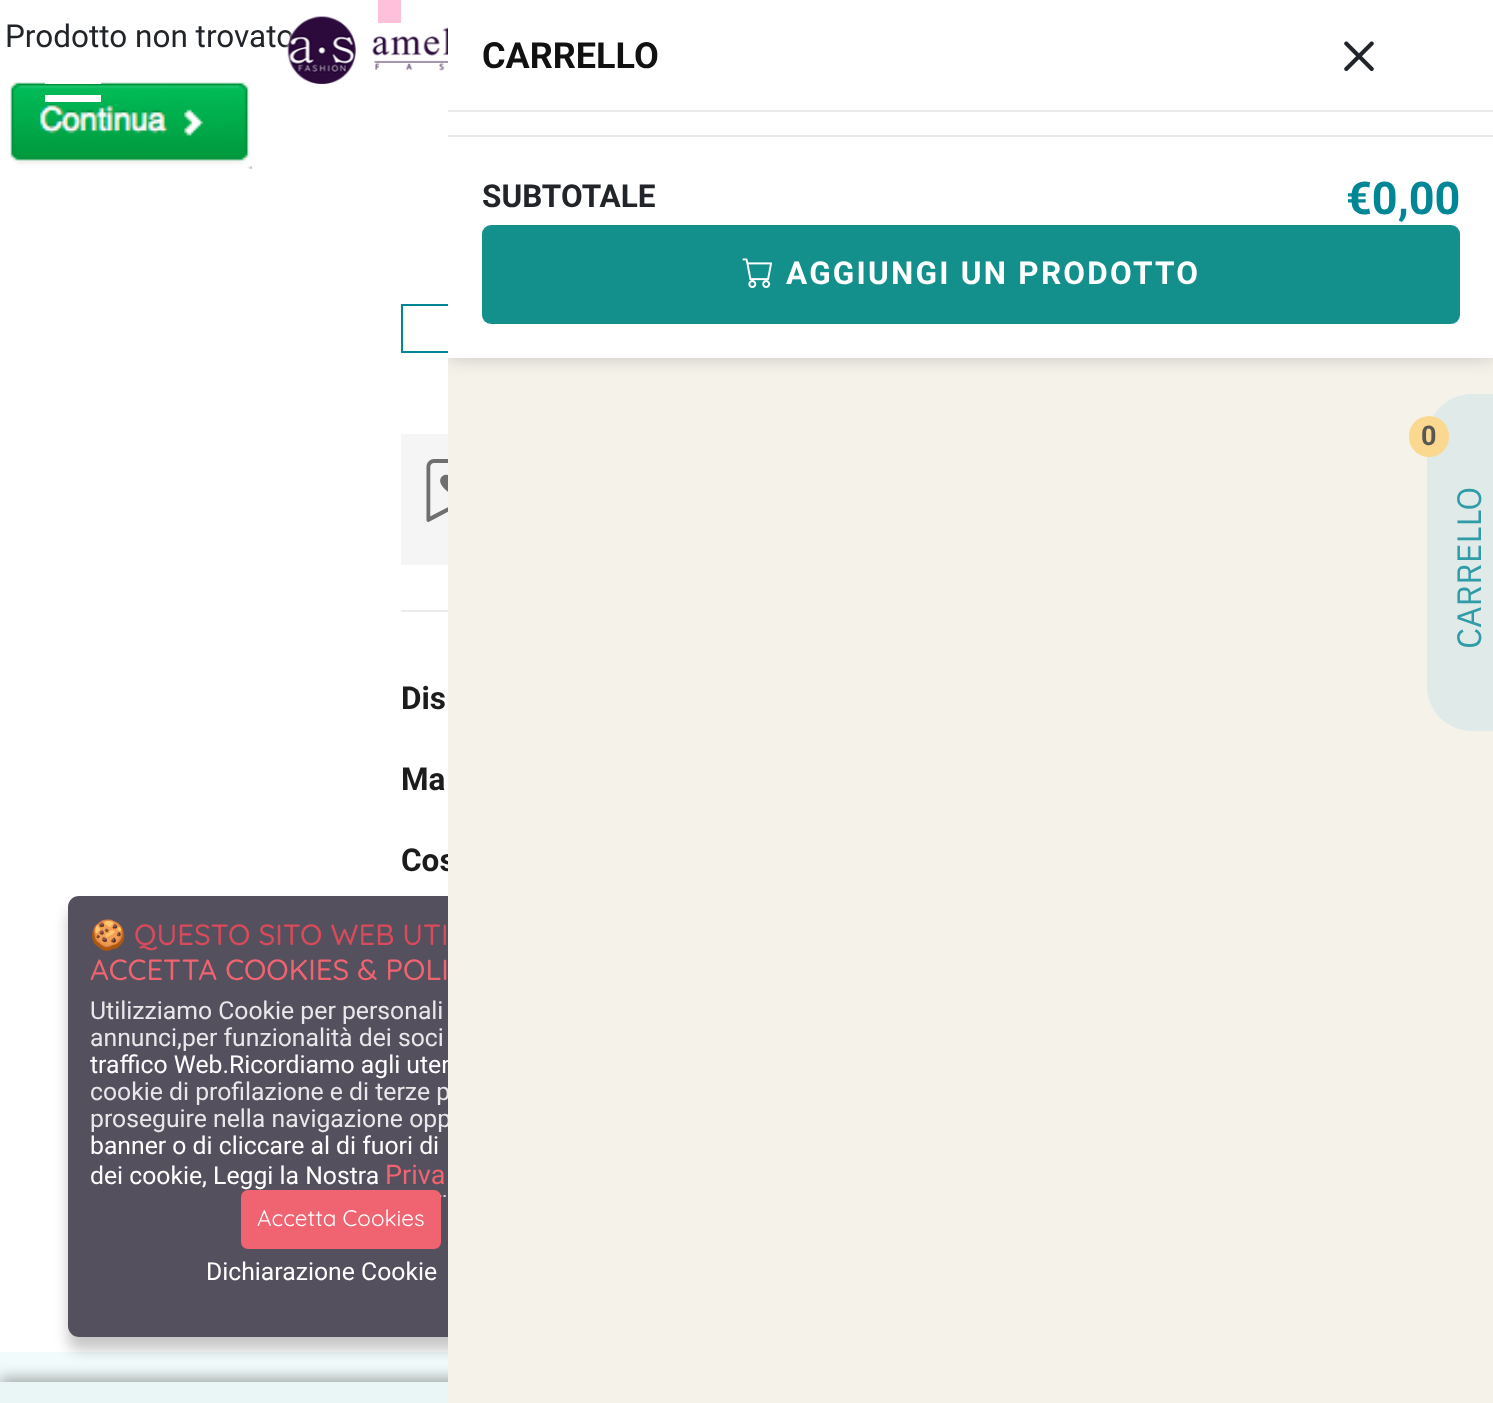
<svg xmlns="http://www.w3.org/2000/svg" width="1493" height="1403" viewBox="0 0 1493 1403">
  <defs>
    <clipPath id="clip1"><path d="M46 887H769V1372H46ZM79 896H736C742 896 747 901 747 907V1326C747 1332 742 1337 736 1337H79C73 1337 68 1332 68 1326V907C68 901 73 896 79 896Z" clip-rule="evenodd"/></clipPath>
    <clipPath id="clip2"><path d="M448 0h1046v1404H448z"/></clipPath>
  </defs>
  <rect width="100%" height="100%" fill="#fff"/>
  <image x="10" y="82" width="242" height="87" href="img/2.png"/>
  <path d="M45 82h56v2H45z" fill="#fff"/>
  <path d="M45 95h56v7H45z" fill="#fff"/>
  <image x="1344" y="41" width="30" height="31" href="img/3.png"/>
  <path d="M402 305h679v47H402z" fill="none" stroke="#008696" stroke-width="2"/>
  <path d="M401 434h47v131H401z" fill="#f5f5f5"/>
  <image x="426" y="459" width="22" height="63" href="img/5.png"/>
  <path d="M401 610h47v2H401z" fill="#ebebeb"/>
  <path d="M0 1352h448v30H0z" fill="#f1fbfb"/>
  <g clip-path="url(#clip1)">
    <rect x="68" y="909" width="679" height="441" rx="11" fill="#00000038" filter="blur(7px)"/>
  </g>
  <rect x="68" y="896" width="679" height="441" rx="11" fill="#3b3646de"/>
  <path d="M385 1196H675" fill="none" stroke="#d4d3d7" stroke-width="2.2" stroke-dasharray="2.25 2.25"/>
  <rect x="241" y="1190" width="200" height="59" rx="7" fill="#f06370"/>
  <path d="M0 1377h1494v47H0z" fill="#0000004d" filter="blur(7px)"/>
  <path d="M0 1382h448v21H0z" fill="#eaf5f5"/>
  <text x="5" y="47" font-family="Roboto" font-size="31.5" fill="#212529">Prodotto non trovato</text>
  <image x="284" y="16" width="164" height="68" href="img/1.png"/>
  <path d="M378 0h23v23H378z" fill="#ffc0db"/>
  <text x="482" y="68" font-family="Roboto" font-size="36" font-weight="bold" fill="#111">CARRELLO</text>
  <g font-family="Roboto" font-size="31.5" font-weight="bold" fill="#1c1c1c">
    <text x="401" y="709">Dis</text>
    <text x="401" y="790">Ma</text>
    <text x="401" y="871">Cos</text>
  </g>
  <text x="90" y="945" font-family="Noto Color Emoji" font-size="29.25" fill="#f06370">🍪</text>
  <text x="134" y="945" font-family="Quicksand" font-size="29.25" font-weight="500" fill="#d94b5a">QUESTO SITO WEB UTI</text>
  <text x="90" y="980" font-family="Quicksand" font-size="29.25" font-weight="500" fill="#f06370">ACCETTA COOKIES &amp; POLI</text>
  <g font-family="Roboto" font-size="24.75" fill="#e8e7e9">
    <text x="90" y="1019">Utilizziamo Cookie per personali</text>
    <text x="90" y="1046">annunci,per funzionalità dei soci</text>
  </g>
  <text x="90" y="1073" font-family="Roboto" font-size="24.75" fill="#fff">traffico Web.Ricordiamo agli uten</text>
  <g font-family="Roboto" font-size="24.75" fill="#e8e7e9">
    <text x="90" y="1100">cookie di profilazione e di terze p</text>
    <text x="90" y="1127">proseguire nella navigazione opp</text>
  </g>
  <path d="M448 358h1045v1045H448z" fill="#f5f2ea"/>
  <path d="M1472 394H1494V731H1472C1447 731 1427 711 1427 686V439C1427 414 1447 394 1472 394Z" fill="#e0ebe9"/>
  <rect x="1409" y="416" width="40" height="41" rx="20" fill="#fbd890"/>
  <text x="1421" y="445" font-family="Roboto" font-size="27" font-weight="bold" fill="#585754">0</text>
  <text x="1481" y="649" transform="rotate(-90 1481 649)" font-family="IBM Plex Sans" font-size="33.75" fill="#319ca7">CARRELLO</text>
  <g clip-path="url(#clip2)">
    <path d="M448 131h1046v222H448z" fill="#0000004d" filter="blur(11px)"/>
  </g>
  <path d="M448 111h1045v24H448z" fill="#fff"/>
  <path d="M448 110h1045v2H448z" fill="#eaeaea"/>
  <path d="M448 137h1045v221H448z" fill="#fff"/>
  <rect x="482" y="225" width="978" height="99" rx="9" fill="#14908c"/>
  <text x="786" y="284" font-family="Roboto" font-size="31.5" font-weight="bold" letter-spacing="2.25" fill="#fff">AGGIUNGI UN PRODOTTO</text>
  <image x="742" y="258" width="30" height="30" href="img/4.png"/>
  <text x="482" y="207" font-family="Roboto" font-size="31.5" font-weight="bold" fill="#212529">SUBTOTALE</text>
  <text x="1346" y="214" font-family="Roboto" font-size="45" font-weight="bold" fill="#008695">€0,00</text>
  <path d="M448 135h1045v2H448z" fill="#eaeaea"/>
  <g font-family="Roboto" font-size="24.75" fill="#fff">
    <text x="90" y="1154">banner o di cliccare al di fuori di</text>
    <text x="90" y="1184">dei cookie, Leggi la Nostra</text>
  </g>
  <text x="385" y="1184" font-family="Roboto" font-size="27" fill="#f06370">Priva</text>
  <text x="257" y="1226" font-family="Quicksand" font-size="22.5" fill="#fff">Accetta Cookies</text>
  <text x="206" y="1280" font-family="Roboto" font-size="24.75" fill="#fff">Dichiarazione Cookie</text>
</svg>
